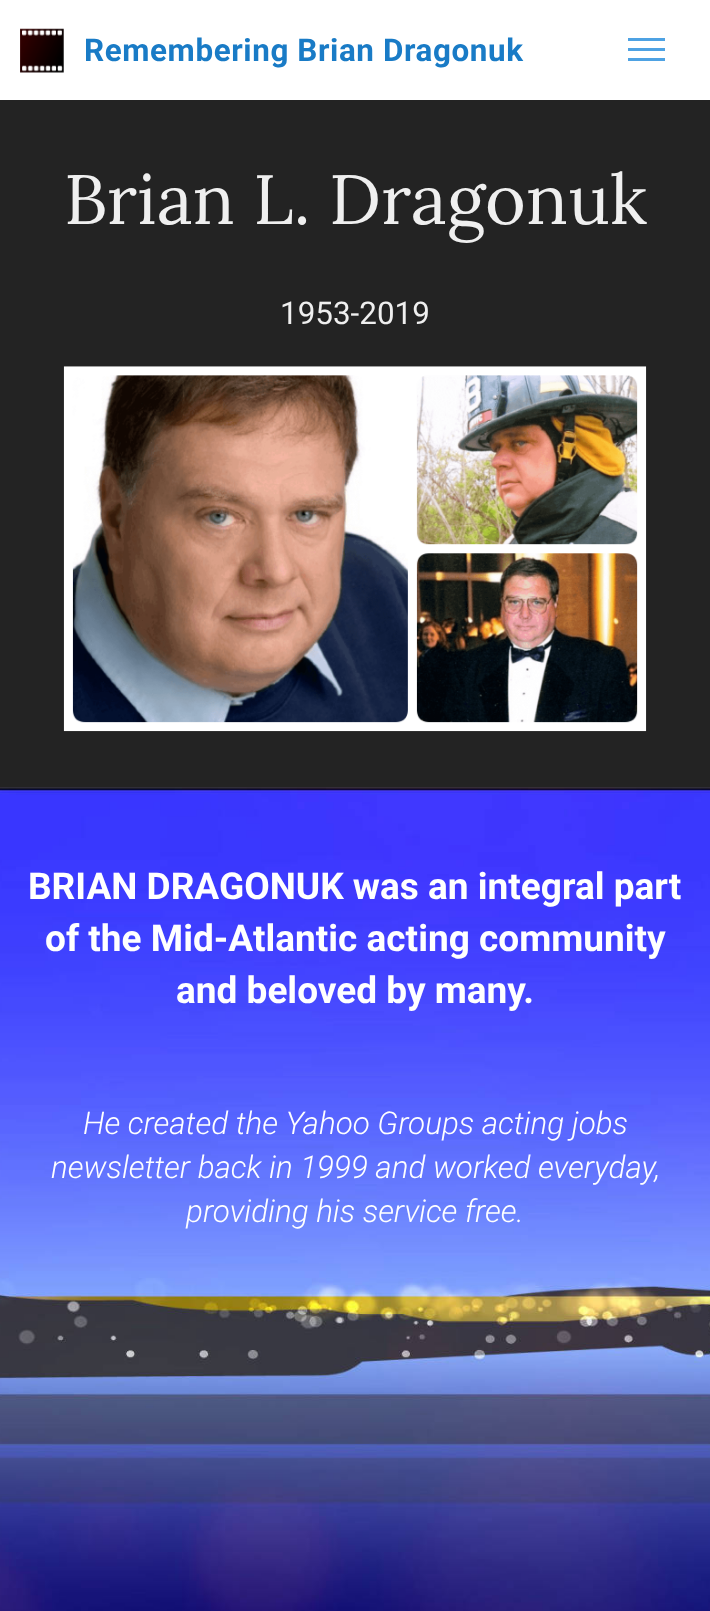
<svg xmlns="http://www.w3.org/2000/svg" width="710" height="1611" viewBox="0 0 710 1611">
  <rect width="100%" height="100%" fill="#232323"/>
  <path d="M0 0h710v100H0z" fill="#fff"/>
  <image x="20" y="28" width="44" height="45" href="img/1.png"/>
  <path d="M628 38h37v3H628z" fill="#4ea2e3"/>
  <path d="M628 48h37v3H628z" fill="#4ea2e3"/>
  <path d="M628 58h37v3H628z" fill="#4ea2e3"/>
  <image x="63" y="366" width="584" height="366" href="img/2.png"/>
  <image x="0" y="787" width="710" height="824" href="img/3.png"/>
  <text x="84" y="61" font-family="Roboto" font-size="31.4" font-weight="bold" letter-spacing="0.6" fill="#197bc6">Remembering Brian Dragonuk</text>
  <text x="64" y="224" font-family="Lora" font-size="69.75" fill="#efefef">Brian L. Dragonuk</text>
  <text x="280" y="324" font-family="Roboto" font-size="31.4" fill="#efefef">1953-2019</text>
  <g font-family="Roboto" font-size="37" font-weight="bold" fill="#fff">
    <text x="28" y="899">BRIAN DRAGONUK was an integral part</text>
    <text x="45" y="951">of the Mid-Atlantic acting community</text>
    <text x="176" y="1003">and beloved by many.</text>
  </g>
  <g font-family="Roboto" font-size="31.4" font-weight="300" font-style="italic" fill="#fff">
    <text x="83" y="1134">He created the Yahoo Groups acting jobs</text>
    <text x="51" y="1178">newsletter back in 1999 and worked everyday,</text>
    <text x="186" y="1222">providing his service free.</text>
  </g>
</svg>
